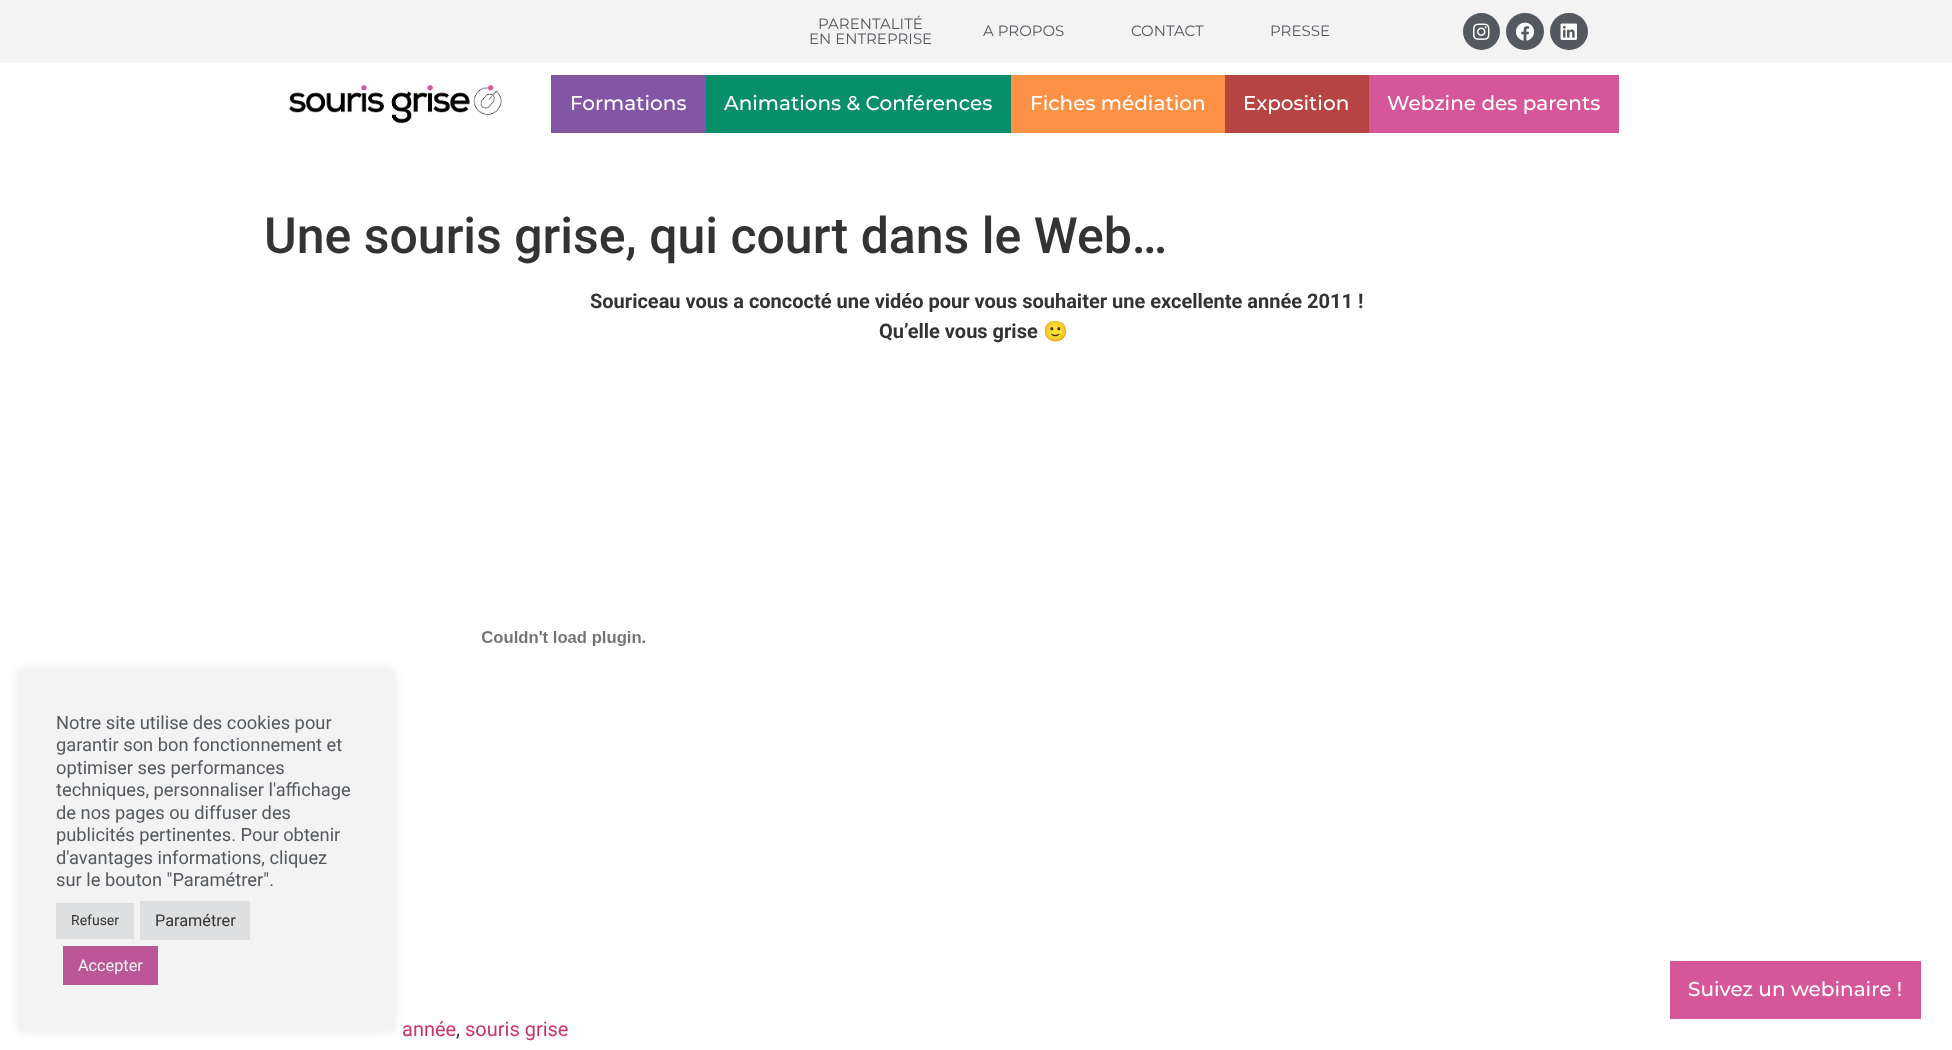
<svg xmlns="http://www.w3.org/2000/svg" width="1952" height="1050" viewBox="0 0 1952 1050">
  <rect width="100%" height="100%" fill="#fff"/>
  <path d="M0 0h1952v63H0z" fill="#f3f3f3"/>
  <circle cx="1481.5" cy="31.5" r="18.5" fill="#54595f"/>
  <image x="1473" y="23" width="17" height="17" href="img/1.png"/>
  <rect x="1506" y="13" width="38" height="37" rx="18.5" fill="#54595f"/>
  <image x="1515" y="22" width="20" height="19" href="img/2.png"/>
  <rect x="1550" y="13" width="38" height="37" rx="18.5" fill="#54595f"/>
  <image x="1560" y="23" width="17" height="17" href="img/3.png"/>
  <image x="289" y="84" width="213" height="40" href="img/4.png"/>
  <path d="M551 75h155v58H551z" fill="#8256a5"/>
  <path d="M706 75h305v58H706z" fill="#098e6c"/>
  <path d="M1011 75h214v58H1011z" fill="#fd9145"/>
  <path d="M1225 75h144v58H1225z" fill="#b64443"/>
  <path d="M1369 75h250v58H1369z" fill="#d65799"/>
  <path d="M1670 961h251v58H1670z" fill="#d65799"/>
  <path d="M19 670h375v360H19z" fill="#acabab4d" filter="blur(6px)"/>
  <path d="M19 671h375v360H19z" fill="#f3f3f3"/>
  <path d="M56 903h78v36H56z" fill="#dedfe0"/>
  <path d="M140 901h110v39H140z" fill="#dedfe0"/>
  <path d="M63 946h95v39H63z" fill="#bb5796"/>
  <image x="482" y="631" width="163" height="15" href="img/5.png"/>
  <g font-family="Montserrat" font-size="15" fill="#54595f">
    <text x="818" y="29">PARENTALITÉ</text>
    <text x="809" y="44">EN ENTREPRISE</text>
    <text x="983" y="36">A PROPOS</text>
    <text x="1131" y="36">CONTACT</text>
    <text x="1270" y="36">PRESSE</text>
  </g>
  <g font-family="Montserrat" font-size="20" font-weight="500" fill="#fff">
    <text x="570" y="110">Formations</text>
    <text x="724" y="110">Animations &amp; Conférences</text>
    <text x="1030" y="110">Fiches médiation</text>
    <text x="1243" y="110">Exposition</text>
    <text x="1387" y="110">Webzine des parents</text>
    <text x="1688" y="996">Suivez un webinaire !</text>
  </g>
  <g font-family="Roboto" font-size="18.3" fill="#54595f">
    <text x="56" y="729">Notre site utilise des cookies pour</text>
    <text x="56" y="751">garantir son bon fonctionnement et</text>
    <text x="56" y="774">optimiser ses performances</text>
    <text x="56" y="796">techniques, personnaliser l'affichage</text>
    <text x="56" y="819">de nos pages ou diffuser des</text>
    <text x="56" y="841">publicités pertinentes. Pour obtenir</text>
    <text x="56" y="864">d'avantages informations, cliquez</text>
    <text x="56" y="886">sur le bouton "Paramétrer".</text>
  </g>
  <text x="71" y="925" font-family="Roboto" font-size="14" fill="#333">Refuser</text>
  <text x="155" y="926" font-family="Roboto" font-size="16.25" fill="#333">Paramétrer</text>
  <text x="78" y="971" font-family="Roboto" font-size="16.25" fill="#f3f3f3">Accepter</text>
  <text x="264" y="253" font-family="Roboto" font-size="50" font-weight="500" fill="#333">Une souris grise, qui court dans le Web…</text>
  <g font-family="Roboto" font-size="20" font-weight="bold" fill="#333">
    <text x="590" y="308">Souriceau vous a concocté une vidéo pour vous souhaiter une excellente année 2011 !</text>
    <text x="879" y="338">Qu’elle vous grise</text>
  </g>
  <text x="1043" y="338" font-family="Noto Color Emoji" font-size="20" font-weight="bold" fill="#333">🙂</text>
  <text x="402" y="1036" font-family="Roboto" font-size="20" fill="#c36">année</text>
  <text x="456" y="1036" font-family="Roboto" font-size="20" fill="#333">,</text>
  <text x="465" y="1036" font-family="Roboto" font-size="20" fill="#c36">souris grise</text>
</svg>
